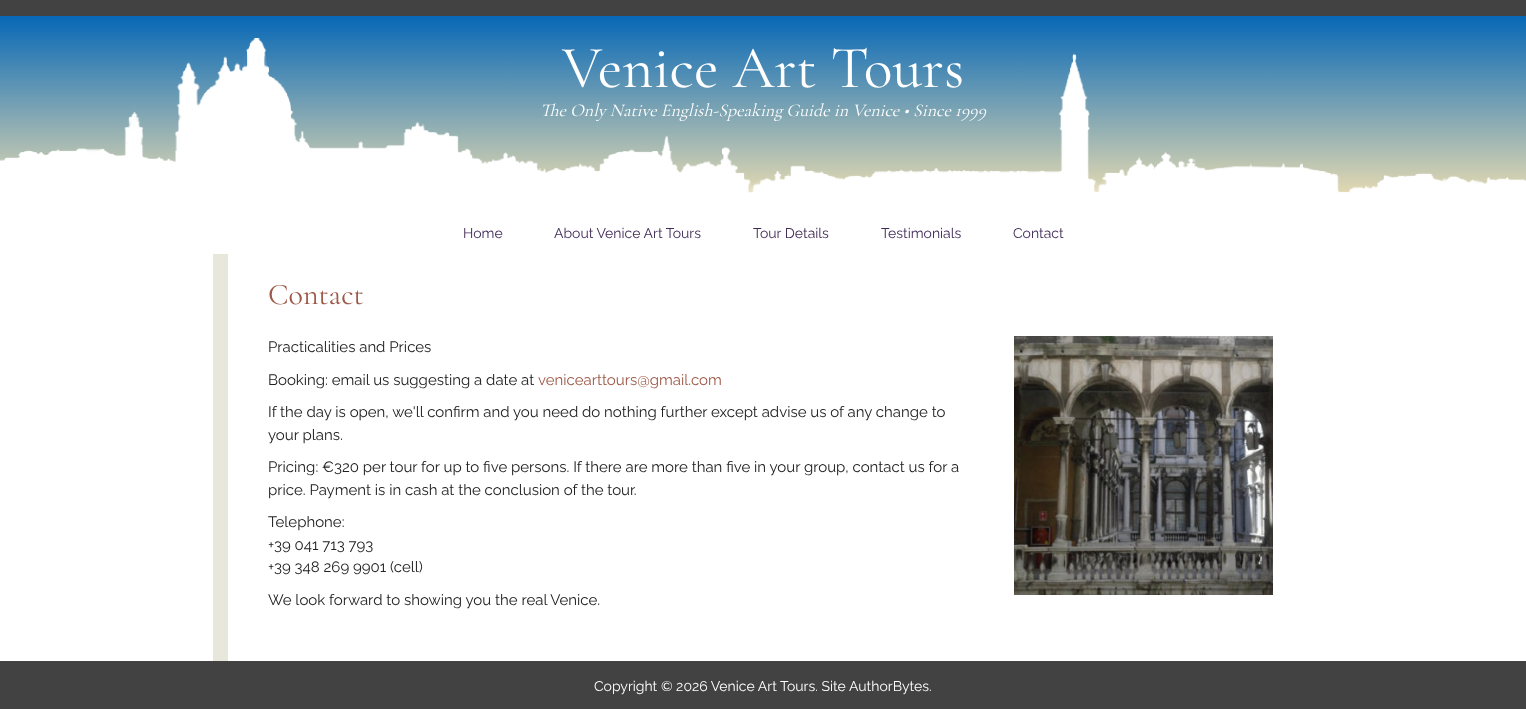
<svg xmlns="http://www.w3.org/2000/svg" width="1526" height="709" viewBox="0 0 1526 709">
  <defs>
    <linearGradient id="g1" gradientUnits="userSpaceOnUse" x1="763" y1="16" x2="763" y2="213"><stop offset="0" stop-color="#0768b6"/><stop offset="1" stop-color="#fbe5b1"/></linearGradient>
  </defs>
  <rect width="100%" height="100%" fill="#fff"/>
  <path d="M0 0h1526v16H0z" fill="#424242"/>
  <path d="M0 16h1526v177H0z" fill="url(#g1)"/>
  <image x="0" y="38" width="1526" height="175" href="img/1.png"/>
  <path d="M213 254h15v407H213z" fill="#e7e8db"/>
  <image x="1014" y="336" width="259" height="259" href="img/2.png"/>
  <path d="M0 661h1526v48H0z" fill="#424242"/>
  <text x="562" y="87" font-family="Cormorant Garamond" font-size="60" font-weight="300" fill="#fff">Venice Art Tours</text>
  <text x="540" y="116" font-family="Cormorant Garamond" font-size="18" font-weight="300" font-style="italic" fill="#fff">The Only Native English-Speaking Guide in Venice • Since 1999</text>
  <g font-family="Raleway" font-size="14" fill="#402a56">
    <text x="463" y="238">Home</text>
    <text x="554" y="238">About Venice Art Tours</text>
    <text x="753" y="238">Tour Details</text>
    <text x="881" y="238">Testimonials</text>
    <text x="1013" y="238">Contact</text>
  </g>
  <text x="268" y="304" font-family="Cormorant Garamond" font-size="30" font-weight="300" fill="#9d5847">Contact</text>
  <g font-family="Raleway" font-size="15" fill="#212121">
    <text x="268" y="352">Practicalities and Prices</text>
    <text x="268" y="385">Booking: email us suggesting a date at</text>
  </g>
  <text x="538" y="385" font-family="Raleway" font-size="15" fill="#9d5847">venicearttours@gmail.com</text>
  <g font-family="Raleway" font-size="15" fill="#212121">
    <text x="268" y="417">If the day is open, we'll confirm and you need do nothing further except advise us of any change to</text>
    <text x="268" y="440">your plans.</text>
    <text x="268" y="472">Pricing: €320 per tour for up to five persons. If there are more than five in your group, contact us for a</text>
    <text x="268" y="495">price. Payment is in cash at the conclusion of the tour.</text>
    <text x="268" y="527">Telephone:</text>
    <text x="268" y="550">+39 041 713 793</text>
    <text x="268" y="572">+39 348 269 9901 (cell)</text>
    <text x="268" y="605">We look forward to showing you the real Venice.</text>
  </g>
  <text x="594" y="691" font-family="Raleway" font-size="14" fill="#fff">Copyright © 2026 Venice Art Tours. Site AuthorBytes.</text>
</svg>
